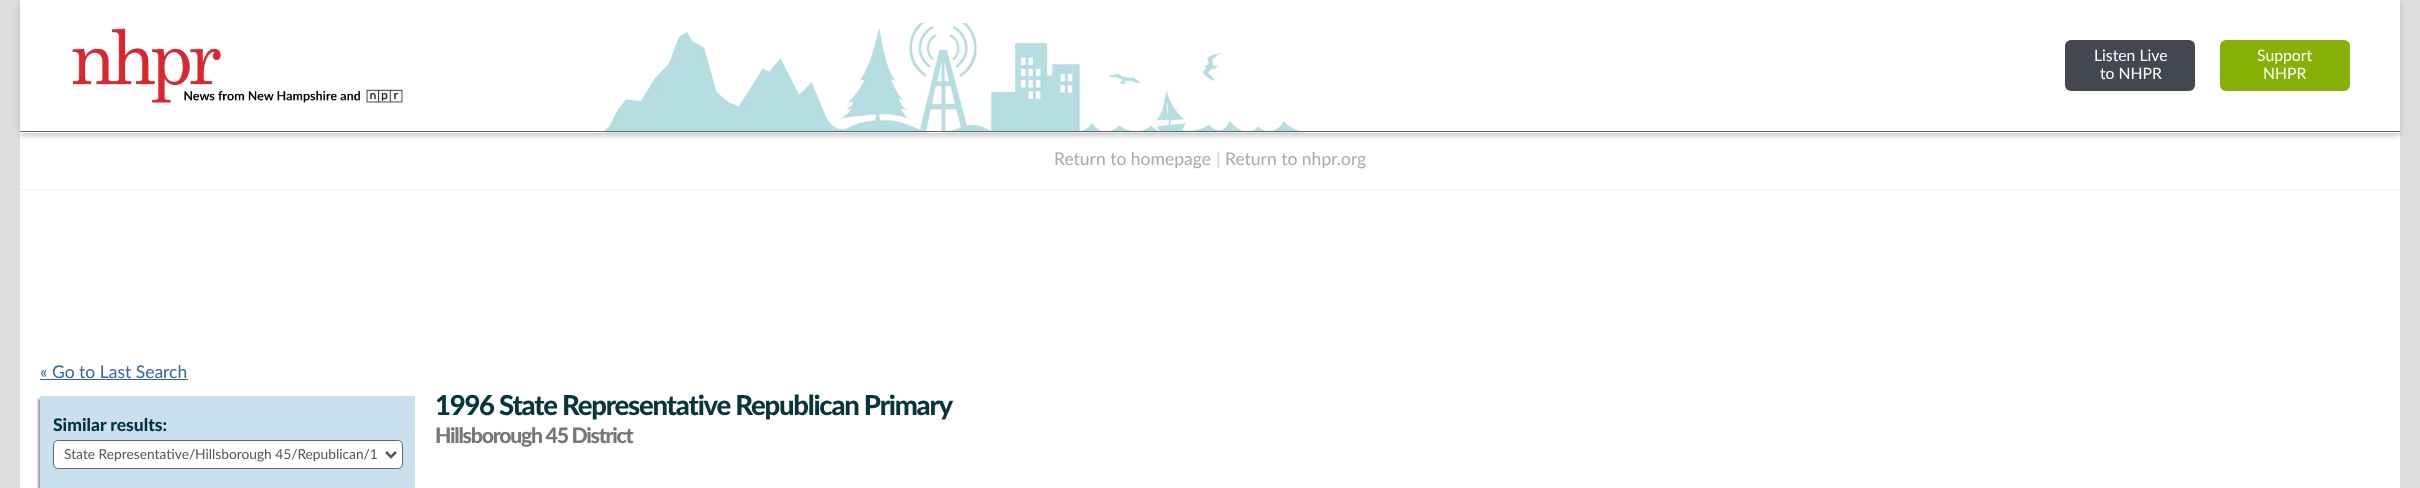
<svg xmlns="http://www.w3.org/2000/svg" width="2420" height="488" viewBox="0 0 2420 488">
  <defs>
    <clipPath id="clip1"><path d="M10 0H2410V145H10ZM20 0H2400V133H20Z" clip-rule="evenodd"/></clipPath>
  </defs>
  <rect width="100%" height="100%" fill="#ddd"/>
  <path d="M20 0h2380v488H20z" fill="#fff"/>
  <g clip-path="url(#clip1)">
    <path d="M20 3h2380v132H20z" fill="#bbb" filter="blur(3px)"/>
  </g>
  <image x="20" y="22" width="1700" height="111" href="img/1.png"/>
  <path d="M20 131h2380v1H20z" fill="#666"/>
  <image x="72" y="28" width="331" height="75" href="img/2.png"/>
  <rect x="2065" y="40" width="130" height="51" rx="6" fill="#444750"/>
  <rect x="2220" y="40" width="130" height="51" rx="6" fill="#87b006"/>
  <path d="M20 189h2380v1H20z" fill="#efefef"/>
  <path d="M40 379h148v1H40z" fill="#369"/>
  <path d="M38 399h375v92H38z" fill="#999" filter="blur(1px)"/>
  <path d="M40 396h375v92H40z" fill="#cbe0ed"/>
  <rect x="53.5" y="440.5" width="349" height="28" rx="4.5" fill="#fff" stroke="#666"/>
  <path d="M386 452L391 457L396 452" fill="none" stroke="#555" stroke-width="2.5"/>
  <g font-family="Lato" font-size="15.75" fill="#fff">
    <text x="2094" y="61">Listen Live</text>
    <text x="2100" y="79">to NHPR</text>
    <text x="2257" y="61">Support</text>
    <text x="2263" y="79">NHPR</text>
  </g>
  <text x="1054" y="165" font-family="Lato" font-size="17.5" fill="#aaa">Return to homepage</text>
  <text x="1216" y="165" font-family="Lato" font-size="17.5" fill="#ccc">|</text>
  <text x="1225" y="165" font-family="Lato" font-size="17.5" fill="#aaa">Return to nhpr.org</text>
  <text x="40" y="378" font-family="Lato" font-size="17.5" fill="#369">« Go to Last Search</text>
  <text x="53" y="431" font-family="Lato" font-size="17.5" font-weight="900" fill="#003045">Similar results:</text>
  <text x="64" y="459" font-family="Lato" font-size="13.75" fill="#555">State Representative/Hillsborough 45/Republican/1</text>
  <text x="435" y="415" font-family="Lato" font-size="27.5" font-weight="900" letter-spacing="-1.25" fill="#06353c">1996 State Representative Republican Primary</text>
  <text x="435" y="443" font-family="Lato" font-size="21.25" font-weight="900" letter-spacing="-1.25" fill="#777">Hillsborough 45 District</text>
</svg>
